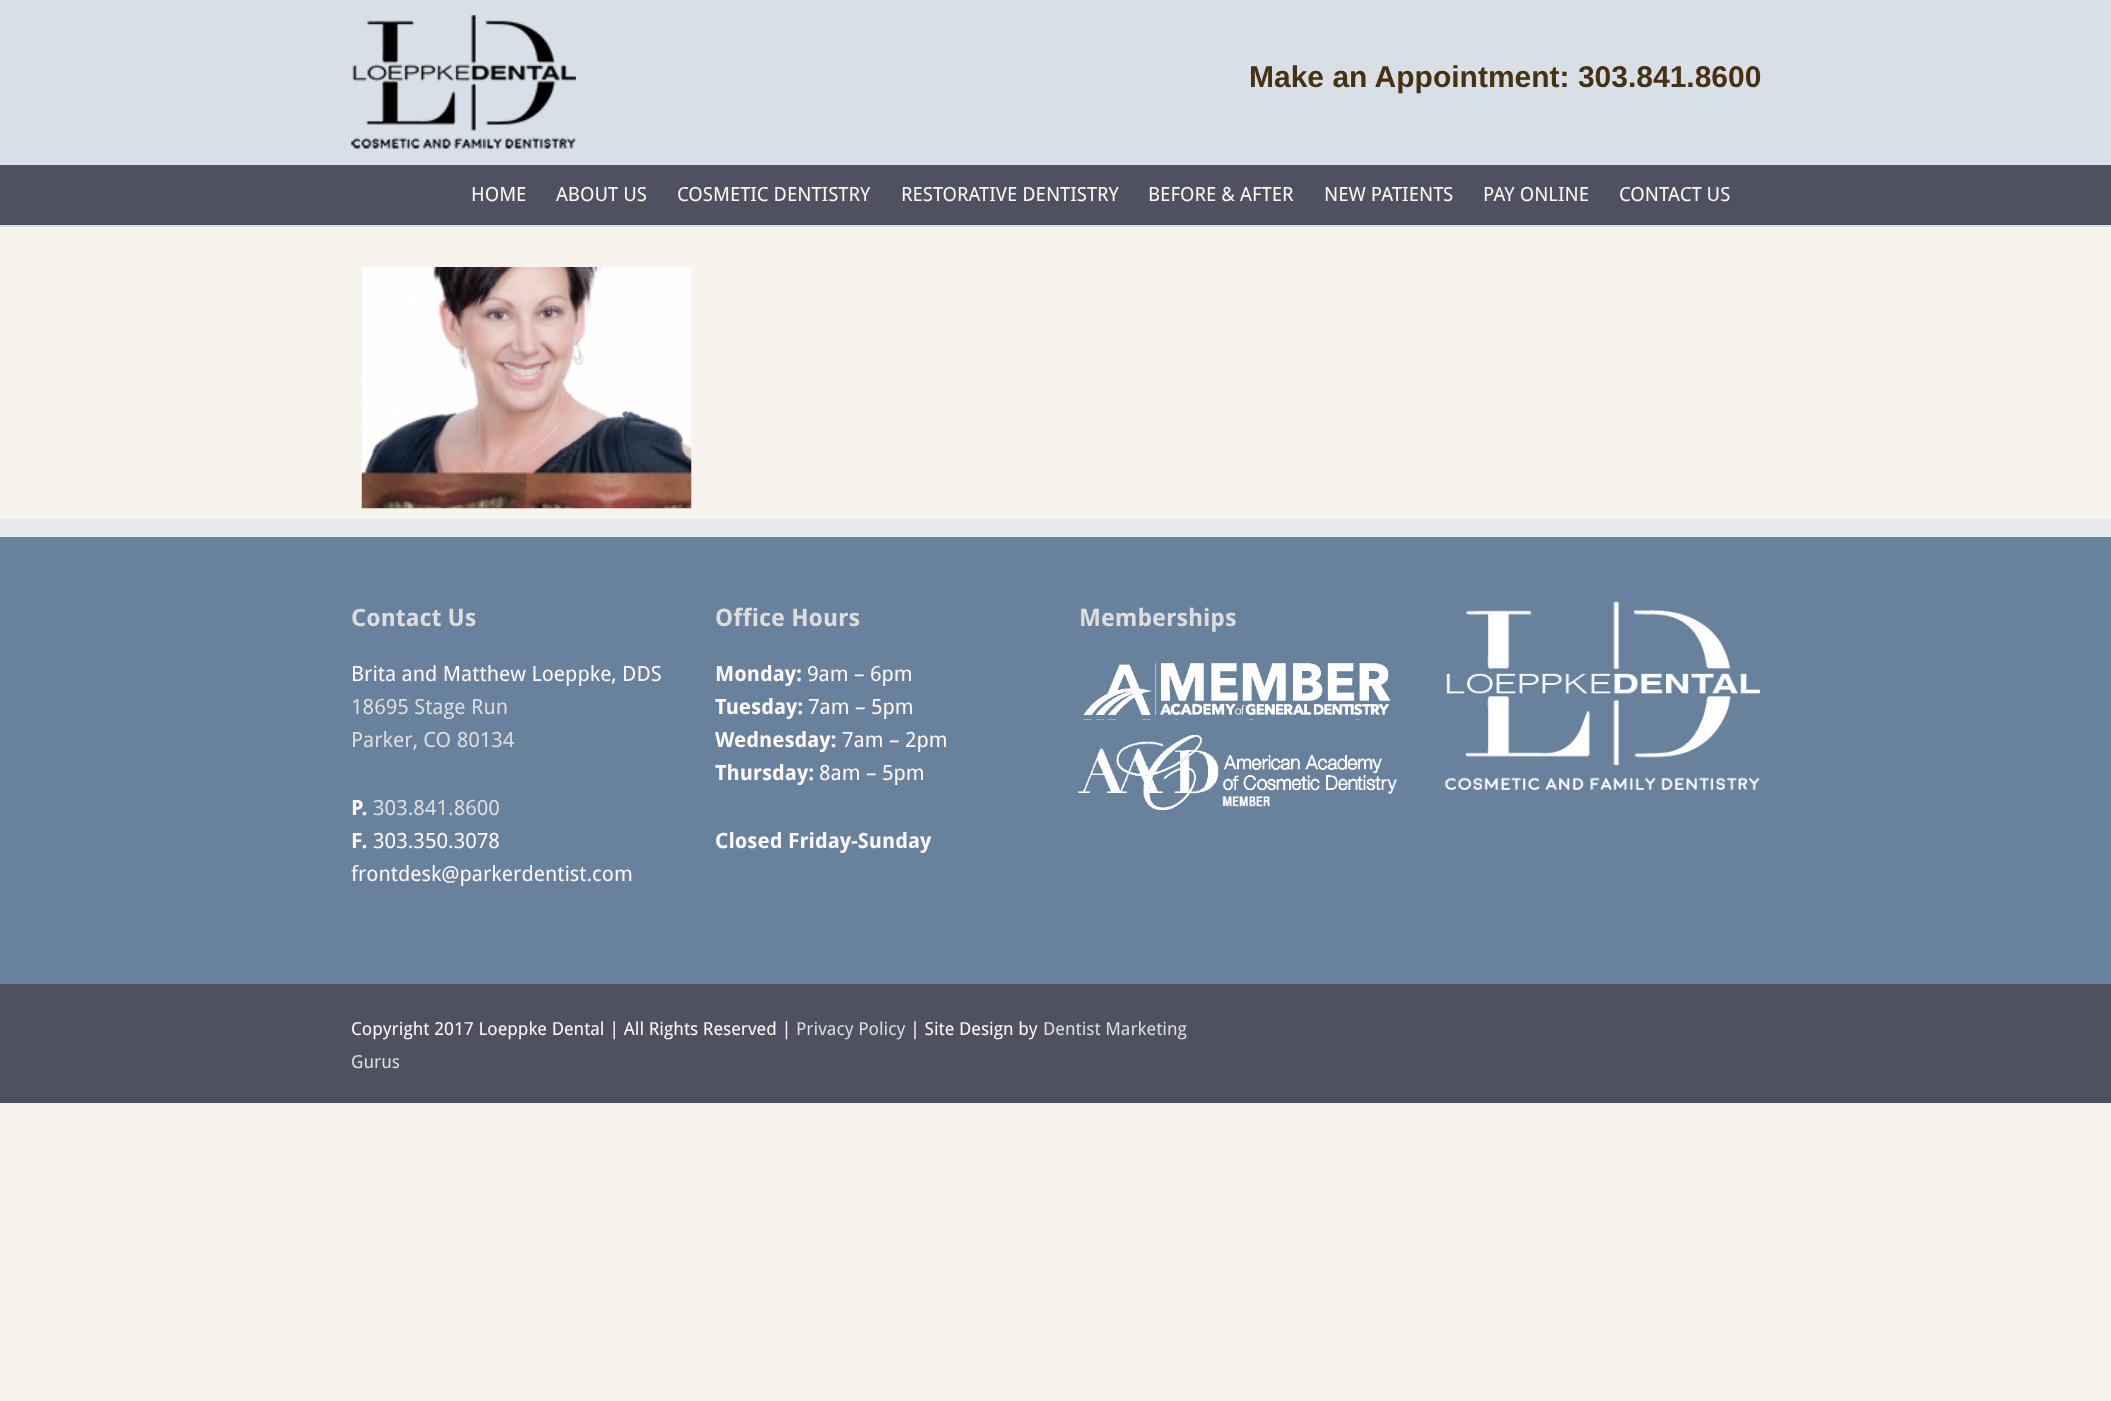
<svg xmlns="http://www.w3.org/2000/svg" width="2111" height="1401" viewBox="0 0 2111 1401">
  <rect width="100%" height="100%" fill="#f7f3ed"/>
  <path d="M0 0h2111v164H0z" fill="#d9dfe6"/>
  <path d="M0 164h2111v1H0z" fill="#e1e1e1"/>
  <image x="351" y="15" width="225" height="134" href="img/1.png"/>
  <path d="M0 165h2111v60H0z" fill="#505160"/>
  <path d="M0 225h2111v2H0z" fill="#d9dfe6"/>
  <image x="361" y="267" width="331" height="242" href="img/2.png"/>
  <path d="M0 537h2111v447H0z" fill="#68829e"/>
  <path d="M0 519h2111v18H0z" fill="#e9eaee"/>
  <image x="1083" y="663" width="308" height="57" href="img/3.png"/>
  <image x="1078" y="735" width="319" height="75" href="img/4.png"/>
  <image x="1444" y="601" width="317" height="189" href="img/5.png"/>
  <path d="M0 984h2111v119H0z" fill="#505160"/>
  <text x="1249" y="87" font-family="Liberation Sans" font-size="30" font-weight="bold" fill="#463112">Make an Appointment: 303.841.8600</text>
  <g font-family="Droid Sans" font-size="19.5" fill="#fef6f0">
    <text x="471" y="201">HOME</text>
    <text x="556" y="201">ABOUT US</text>
    <text x="677" y="201">COSMETIC DENTISTRY</text>
    <text x="901" y="201">RESTORATIVE DENTISTRY</text>
    <text x="1148" y="201">BEFORE &amp; AFTER</text>
    <text x="1324" y="201">NEW PATIENTS</text>
    <text x="1483" y="201">PAY ONLINE</text>
    <text x="1619" y="201">CONTACT US</text>
  </g>
  <text x="351" y="626" font-family="Droid Sans" font-size="24" font-weight="bold" fill="#ddd">Contact Us</text>
  <text x="351" y="681" font-family="Droid Sans" font-size="21" fill="#fff7f7">Brita and Matthew Loeppke, DDS</text>
  <g font-family="Droid Sans" font-size="21" fill="#ddd">
    <text x="351" y="714">18695 Stage Run</text>
    <text x="351" y="747">Parker, CO 80134</text>
  </g>
  <text x="351" y="815" font-family="Droid Sans" font-size="21" font-weight="bold" fill="#fff7f7">P.</text>
  <text x="373" y="815" font-family="Droid Sans" font-size="21" fill="#ddd">303.841.8600</text>
  <text x="351" y="848" font-family="Droid Sans" font-size="21" font-weight="bold" fill="#fff7f7">F.</text>
  <g font-family="Droid Sans" font-size="21" fill="#fff7f7">
    <text x="373" y="848">303.350.3078</text>
    <text x="351" y="881">frontdesk@parkerdentist.com</text>
  </g>
  <text x="715" y="626" font-family="Droid Sans" font-size="24" font-weight="bold" fill="#ddd">Office Hours</text>
  <text x="715" y="681" font-family="Droid Sans" font-size="21" font-weight="bold" fill="#fff7f7">Monday:</text>
  <text x="807" y="681" font-family="Droid Sans" font-size="21" fill="#fff7f7">9am – 6pm</text>
  <text x="715" y="714" font-family="Droid Sans" font-size="21" font-weight="bold" fill="#fff7f7">Tuesday:</text>
  <text x="808" y="714" font-family="Droid Sans" font-size="21" fill="#fff7f7">7am – 5pm</text>
  <text x="715" y="747" font-family="Droid Sans" font-size="21" font-weight="bold" fill="#fff7f7">Wednesday:</text>
  <text x="842" y="747" font-family="Droid Sans" font-size="21" fill="#fff7f7">7am – 2pm</text>
  <text x="715" y="780" font-family="Droid Sans" font-size="21" font-weight="bold" fill="#fff7f7">Thursday:</text>
  <text x="819" y="780" font-family="Droid Sans" font-size="21" fill="#fff7f7">8am – 5pm</text>
  <text x="715" y="848" font-family="Droid Sans" font-size="21" font-weight="bold" fill="#fff7f7">Closed Friday-Sunday</text>
  <text x="1079" y="626" font-family="Droid Sans" font-size="24" font-weight="bold" fill="#ddd">Memberships</text>
  <text x="351" y="1035" font-family="Droid Sans" font-size="18" fill="#fff7f7">Copyright 2017 Loeppke Dental | All Rights Reserved |</text>
  <text x="796" y="1035" font-family="Droid Sans" font-size="18" fill="#ddd">Privacy Policy</text>
  <text x="910" y="1035" font-family="Droid Sans" font-size="18" fill="#fff7f7">| Site Design by</text>
  <g font-family="Droid Sans" font-size="18" fill="#ddd">
    <text x="1043" y="1035">Dentist Marketing</text>
    <text x="351" y="1068">Gurus</text>
  </g>
</svg>
